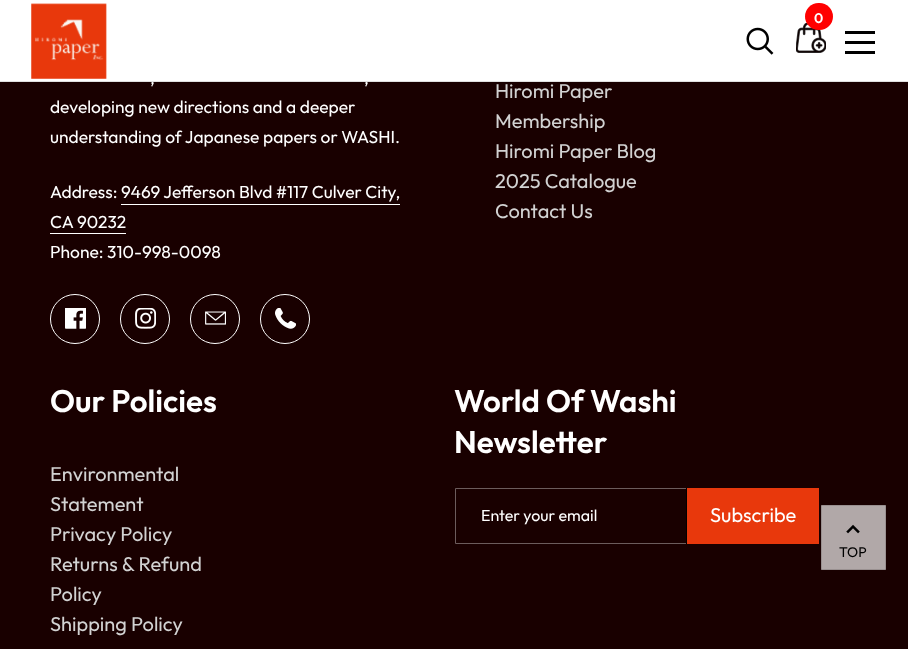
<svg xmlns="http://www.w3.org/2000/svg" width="908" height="649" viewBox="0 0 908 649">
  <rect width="100%" height="100%" fill="#190000"/>
  <path d="M0 0h908v81H0z" fill="#fff"/>
  <image x="31" y="3" width="76" height="76" href="img/1.png"/>
  <image x="796" y="23" width="30" height="30" href="img/2.png"/>
  <rect x="805" y="3" width="28" height="27" rx="13.5" fill="#f00"/>
  <image x="746" y="27" width="28" height="28" href="img/3.png"/>
  <path d="M845 31h30v3H845z" fill="#000"/>
  <path d="M845 41h30v3H845z" fill="#000"/>
  <path d="M845 51h30v3H845z" fill="#000"/>
  <path d="M121 204h279v1H121z" fill="#fff"/>
  <path d="M50 233h76v1H50z" fill="#fff"/>
  <circle cx="75" cy="319" r="24.5" fill="none" stroke="#fff"/>
  <image x="65" y="308" width="21" height="21" href="img/4.png"/>
  <circle cx="145" cy="319" r="24.5" fill="none" stroke="#fff"/>
  <image x="135" y="308" width="21" height="21" href="img/5.png"/>
  <circle cx="215" cy="319" r="24.5" fill="none" stroke="#fff"/>
  <image x="205" y="311" width="21" height="14" href="img/6.png"/>
  <circle cx="285" cy="319" r="24.5" fill="none" stroke="#fff"/>
  <image x="275" y="308" width="21" height="21" href="img/7.png"/>
  <path d="M455.5 488.5h363v55H455.5z" fill="none" stroke="#6c5c5c"/>
  <path d="M687 488h132v56H687z" fill="#e8380c"/>
  <path d="M686 488h1v56H686z" fill="#000"/>
  <path d="M821.5 505.5h64v64H821.5z" fill="#b1a8a8" stroke="#999090"/>
  <image x="846" y="524" width="14" height="10" href="img/8.png"/>
  <text x="814" y="23" font-family="Outfit" font-size="14" font-weight="600" fill="#fff">0</text>
  <g font-family="Outfit" font-size="17.4" fill="#fff">
    <text x="150" y="84">,</text>
    <text x="364" y="84">,</text>
  </g>
  <path d="M0 81h908v1H0z" fill="#e0e0e0"/>
  <g font-family="Outfit" font-size="17.4" fill="#fff">
    <text x="50" y="113">developing new directions and a deeper</text>
    <text x="50" y="143">understanding of Japanese papers or WASHI.</text>
    <text x="50" y="198">Address: 9469 Jefferson Blvd #117 Culver City,</text>
    <text x="50" y="228">CA 90232</text>
    <text x="50" y="258">Phone: 310-998-0098</text>
  </g>
  <g font-family="Outfit" font-size="20" fill="#d2d2d2">
    <text x="495" y="98">Hiromi Paper</text>
    <text x="495" y="128">Membership</text>
    <text x="495" y="158">Hiromi Paper Blog</text>
    <text x="495" y="188">2025 Catalogue</text>
    <text x="495" y="218">Contact Us</text>
  </g>
  <text x="50" y="412" font-family="Outfit" font-size="31.25" font-weight="600" fill="#fff">Our Policies</text>
  <g font-family="Outfit" font-size="20" fill="#d2d2d2">
    <text x="50" y="481">Environmental</text>
    <text x="50" y="511">Statement</text>
    <text x="50" y="541">Privacy Policy</text>
    <text x="50" y="571">Returns &amp; Refund</text>
    <text x="50" y="601">Policy</text>
    <text x="50" y="631">Shipping Policy</text>
  </g>
  <g font-family="Outfit" font-size="31.25" font-weight="600" fill="#fff">
    <text x="454" y="412">World Of Washi</text>
    <text x="454" y="453">Newsletter</text>
  </g>
  <text x="481" y="521" font-family="Outfit" font-size="16" fill="#fff">Enter your email</text>
  <text x="710" y="522" font-family="Outfit" font-size="20" fill="#fff">Subscribe</text>
  <text x="839" y="557" font-family="Outfit" font-size="14" fill="#000">TOP</text>
</svg>
